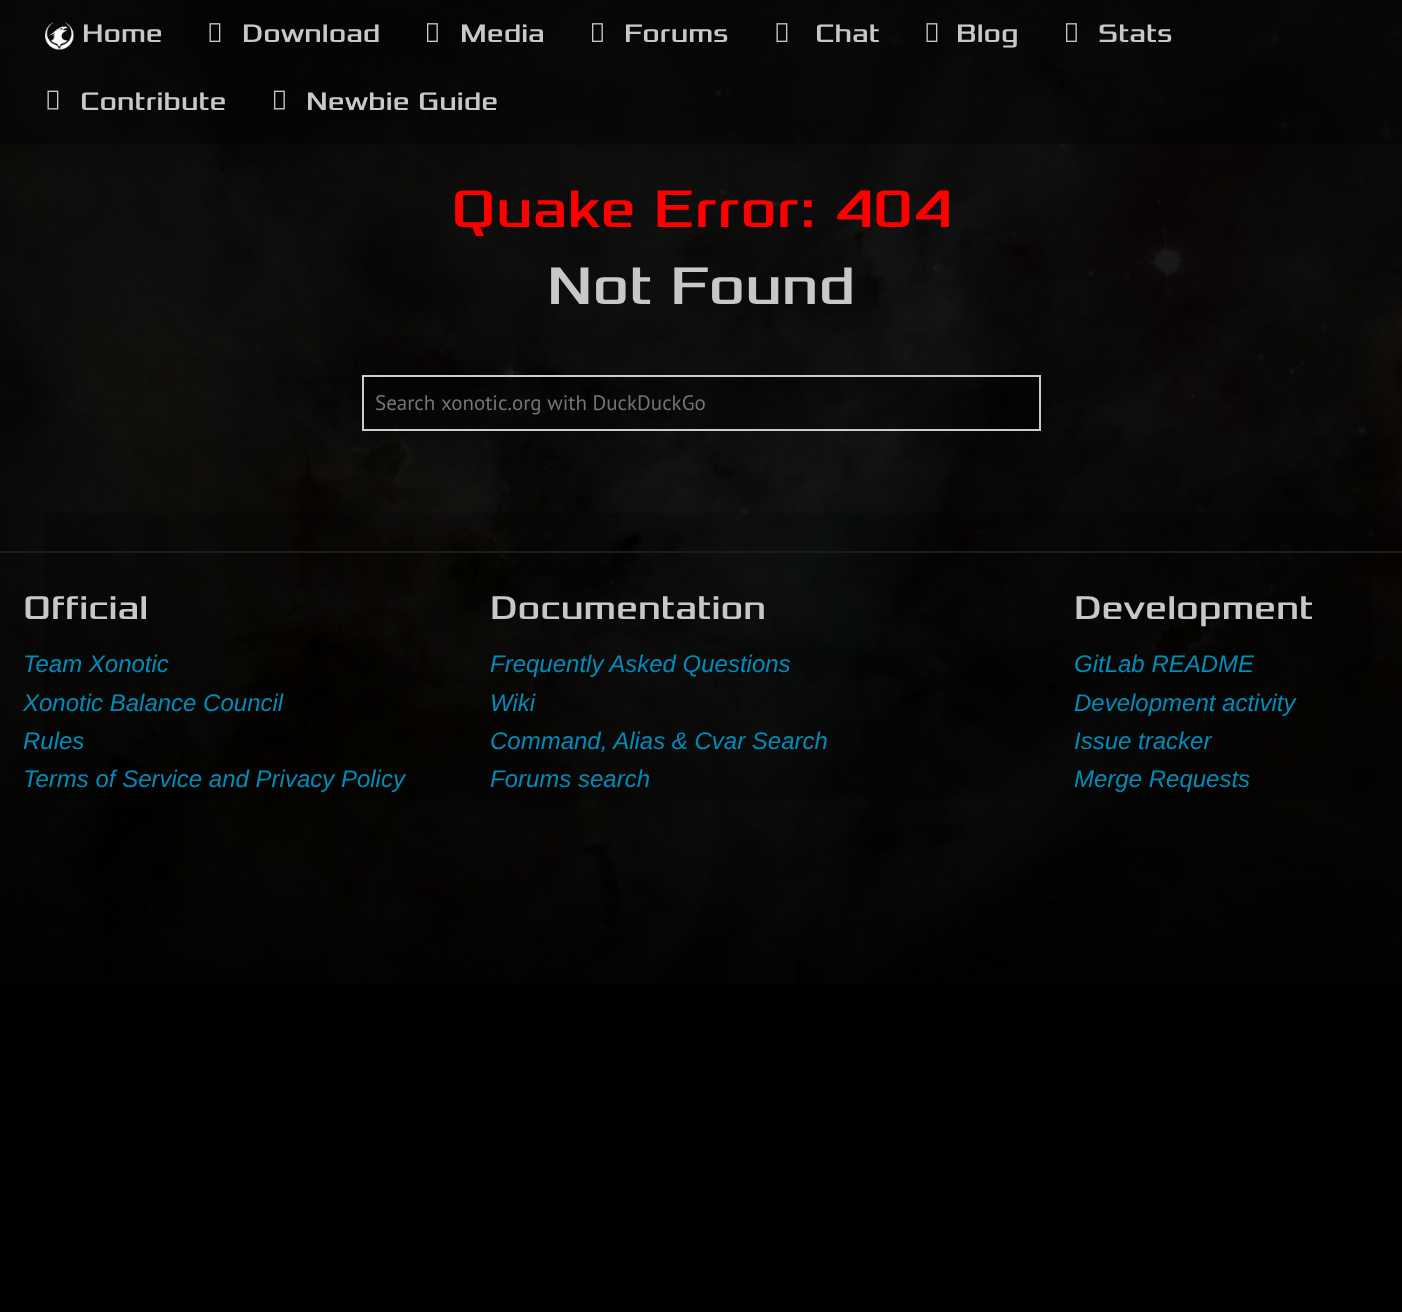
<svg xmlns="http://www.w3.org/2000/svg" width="1402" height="1312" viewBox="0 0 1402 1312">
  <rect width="100%" height="100%" fill="#000"/>
  <image x="0" y="0" width="1402" height="985" href="img/1.png"/>
  <path d="M0 0h1402v144H0z" fill="#00000054"/>
  <image x="45" y="22" width="29" height="28" href="img/2.png"/>
  <image x="209" y="23" width="12" height="19" href="img/3.png"/>
  <image x="427" y="23" width="11" height="19" href="img/4.png"/>
  <image x="592" y="23" width="11" height="19" href="img/5.png"/>
  <image x="776" y="23" width="12" height="19" href="img/6.png"/>
  <image x="926" y="23" width="12" height="19" href="img/7.png"/>
  <image x="1066" y="23" width="11" height="19" href="img/8.png"/>
  <image x="47" y="90" width="12" height="20" href="img/9.png"/>
  <image x="274" y="90" width="11" height="20" href="img/10.png"/>
  <path d="M363 376h677v54H363z" fill="#00000054" stroke="#ccc" stroke-width="2"/>
  <path d="M44 513h1329v286H44z" fill="#00000033"/>
  <path d="M0 551h1402v2H0z" fill="#1b1b1b"/>
  <g font-family="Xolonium" font-size="26.5" fill="#c8c8c8">
    <text x="82" y="42">Home</text>
    <text x="242" y="42">Download</text>
    <text x="460" y="42">Media</text>
    <text x="624" y="42">Forums</text>
    <text x="815" y="42">Chat</text>
    <text x="956" y="42">Blog</text>
    <text x="1098" y="42">Stats</text>
    <text x="80" y="110">Contribute</text>
    <text x="306" y="110">Newbie Guide</text>
  </g>
  <text x="451" y="227" font-family="Xolonium" font-size="55.5" fill="#f00">Quake Error: 404</text>
  <text x="547" y="304" font-family="Xolonium" font-size="55.5" fill="#c8c8c8">Not Found</text>
  <text x="375" y="410" font-family="PT Sans" font-size="21" fill="#757575">Search xonotic.org with DuckDuckGo</text>
  <text x="23" y="619" font-family="Xolonium" font-size="34.5" fill="#c8c8c8">Official</text>
  <g font-family="Liberation Sans" font-size="24" font-style="italic" fill="#008cba">
    <text x="23" y="672">Team Xonotic</text>
    <text x="23" y="711">Xonotic Balance Council</text>
    <text x="23" y="749">Rules</text>
    <text x="23" y="787">Terms of Service and Privacy Policy</text>
  </g>
  <text x="490" y="619" font-family="Xolonium" font-size="34.5" fill="#c8c8c8">Documentation</text>
  <g font-family="Liberation Sans" font-size="24" font-style="italic" fill="#008cba">
    <text x="490" y="672">Frequently Asked Questions</text>
    <text x="490" y="711">Wiki</text>
    <text x="490" y="749">Command, Alias &amp; Cvar Search</text>
    <text x="490" y="787">Forums search</text>
  </g>
  <text x="1074" y="619" font-family="Xolonium" font-size="34.5" fill="#c8c8c8">Development</text>
  <g font-family="Liberation Sans" font-size="24" font-style="italic" fill="#008cba">
    <text x="1074" y="672">GitLab README</text>
    <text x="1074" y="711">Development activity</text>
    <text x="1074" y="749">Issue tracker</text>
    <text x="1074" y="787">Merge Requests</text>
  </g>
</svg>
